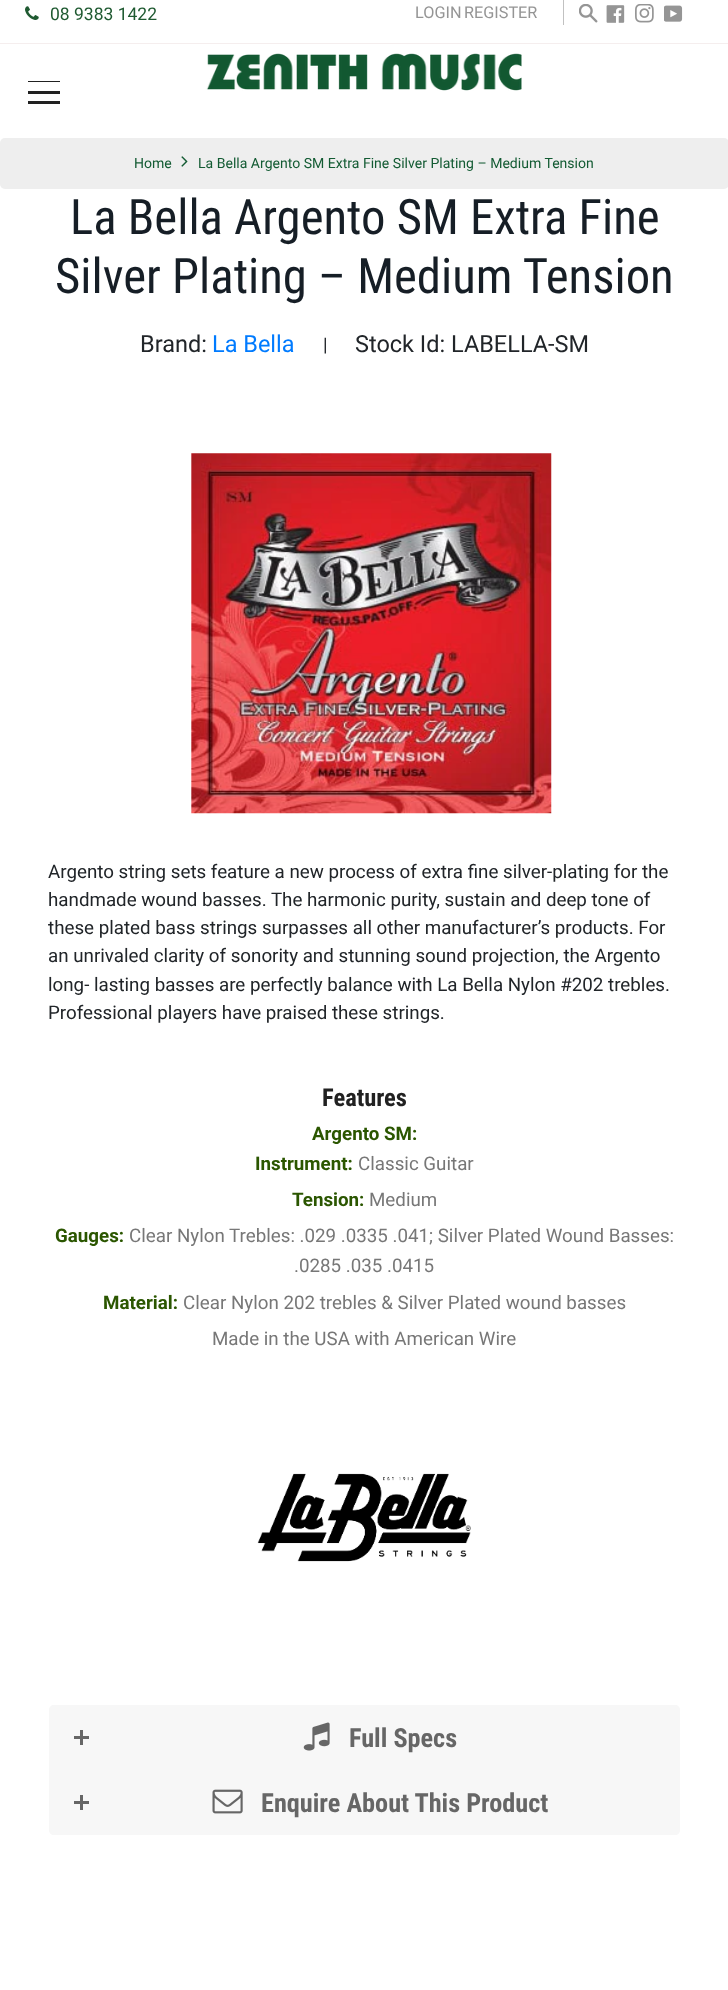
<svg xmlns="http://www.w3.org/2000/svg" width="728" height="1990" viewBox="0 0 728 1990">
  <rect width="100%" height="100%" fill="#fff"/>
  <image x="25" y="6" width="14" height="14" href="img/1.png"/>
  <path d="M563 0h1v25H563z" fill="#c1c1c1"/>
  <image x="579" y="4" width="19" height="19" href="img/2.png"/>
  <image x="606" y="5" width="19" height="18" href="img/3.png"/>
  <image x="635" y="4" width="19" height="19" href="img/4.png"/>
  <image x="664" y="5" width="19" height="17" href="img/5.png"/>
  <path d="M0 43h728v1H0z" fill="#f5eeee"/>
  <image x="206" y="53" width="316" height="38" href="img/6.png"/>
  <path d="M28 91h32v3H28z" fill="#212121"/>
  <path d="M28 81h32v1H28z" fill="#212121"/>
  <path d="M28 101h32v3H28z" fill="#212121"/>
  <rect y="138" width="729" height="51" rx="5" fill="#eee"/>
  <image x="181" y="156" width="7" height="11" href="img/7.png"/>
  <image x="191" y="453" width="361" height="361" href="img/8.png"/>
  <image x="257" y="1473" width="214" height="89" href="img/9.png"/>
  <path d="M54 1705H675C678 1705 680 1707 680 1710V1770H49V1710C49 1707 51 1705 54 1705Z" fill="#f7f7f7"/>
  <path d="M74 1736h15v3H74z" fill="#666"/>
  <path d="M80 1730h3v15H80z" fill="#666"/>
  <image x="303" y="1722" width="27" height="29" href="img/10.png"/>
  <path d="M49 1770H680V1830C680 1833 678 1835 675 1835H54C51 1835 49 1833 49 1830Z" fill="#f7f7f7"/>
  <path d="M74 1801h15v3H74z" fill="#666"/>
  <path d="M80 1795h3v15H80z" fill="#666"/>
  <image x="212" y="1789" width="31" height="25" href="img/11.png"/>
  <text x="50" y="20" font-family="Roboto" font-size="17.5" fill="#1f5a31">08 9383 1422</text>
  <g font-family="Roboto" font-size="16.25" fill="#959595">
    <text x="415" y="18">LOGIN</text>
    <text x="464" y="18">REGISTER</text>
  </g>
  <g font-family="Roboto" font-size="14.05" fill="#135b33">
    <text x="134" y="168">Home</text>
    <text x="198" y="168">La Bella Argento SM Extra Fine Silver Plating – Medium Tension</text>
  </g>
  <g font-family="Roboto Condensed" font-size="48.75" fill="#161e26">
    <text x="70" y="234">La Bella Argento SM Extra Fine</text>
    <text x="55" y="293">Silver Plating – Medium Tension</text>
  </g>
  <text x="140" y="352" font-family="Roboto" font-size="23.5" fill="#212529">Brand:</text>
  <text x="212" y="352" font-family="Roboto" font-size="23.5" fill="#007bff">La Bella</text>
  <text x="323" y="351" font-family="Roboto" font-size="18.75" fill="#212529">|</text>
  <text x="355" y="352" font-family="Roboto" font-size="23.5" fill="#212529">Stock Id: LABELLA-SM</text>
  <g font-family="Roboto" font-size="18.75" fill="#212529">
    <text x="48" y="878">Argento string sets feature a new process of extra fine silver-plating for the</text>
    <text x="48" y="906">handmade wound basses. The harmonic purity, sustain and deep tone of</text>
    <text x="48" y="934">these plated bass strings surpasses all other manufacturer’s products. For</text>
    <text x="48" y="962">an unrivaled clarity of sonority and stunning sound projection, the Argento</text>
    <text x="48" y="991">long- lasting basses are perfectly balance with La Bella Nylon #202 trebles.</text>
    <text x="48" y="1019">Professional players have praised these strings.</text>
  </g>
  <text x="322" y="1106" font-family="Roboto Condensed" font-size="24.5" font-weight="bold" fill="#212121">Features</text>
  <g font-family="Roboto" font-size="18.75" font-weight="bold" fill="#2b5600">
    <text x="312" y="1140">Argento SM:</text>
    <text x="255" y="1170">Instrument:</text>
  </g>
  <text x="358" y="1170" font-family="Roboto" font-size="18.75" fill="#777">Classic Guitar</text>
  <text x="292" y="1206" font-family="Roboto" font-size="18.75" font-weight="bold" fill="#2b5600">Tension:</text>
  <text x="369" y="1206" font-family="Roboto" font-size="18.75" fill="#777">Medium</text>
  <text x="55" y="1242" font-family="Roboto" font-size="18.75" font-weight="bold" fill="#2b5600">Gauges:</text>
  <g font-family="Roboto" font-size="18.75" fill="#777">
    <text x="129" y="1242">Clear Nylon Trebles: .029 .0335 .041; Silver Plated Wound Basses:</text>
    <text x="294" y="1272">.0285 .035 .0415</text>
  </g>
  <text x="103" y="1309" font-family="Roboto" font-size="18.75" font-weight="bold" fill="#2b5600">Material:</text>
  <g font-family="Roboto" font-size="18.75" fill="#777">
    <text x="183" y="1309">Clear Nylon 202 trebles &amp; Silver Plated wound basses</text>
    <text x="212" y="1345">Made in the USA with American Wire</text>
  </g>
  <g font-family="Roboto Condensed" font-size="26.25" font-weight="bold" fill="#666">
    <text x="349" y="1747">Full Specs</text>
    <text x="261" y="1812">Enquire About This Product</text>
  </g>
</svg>
